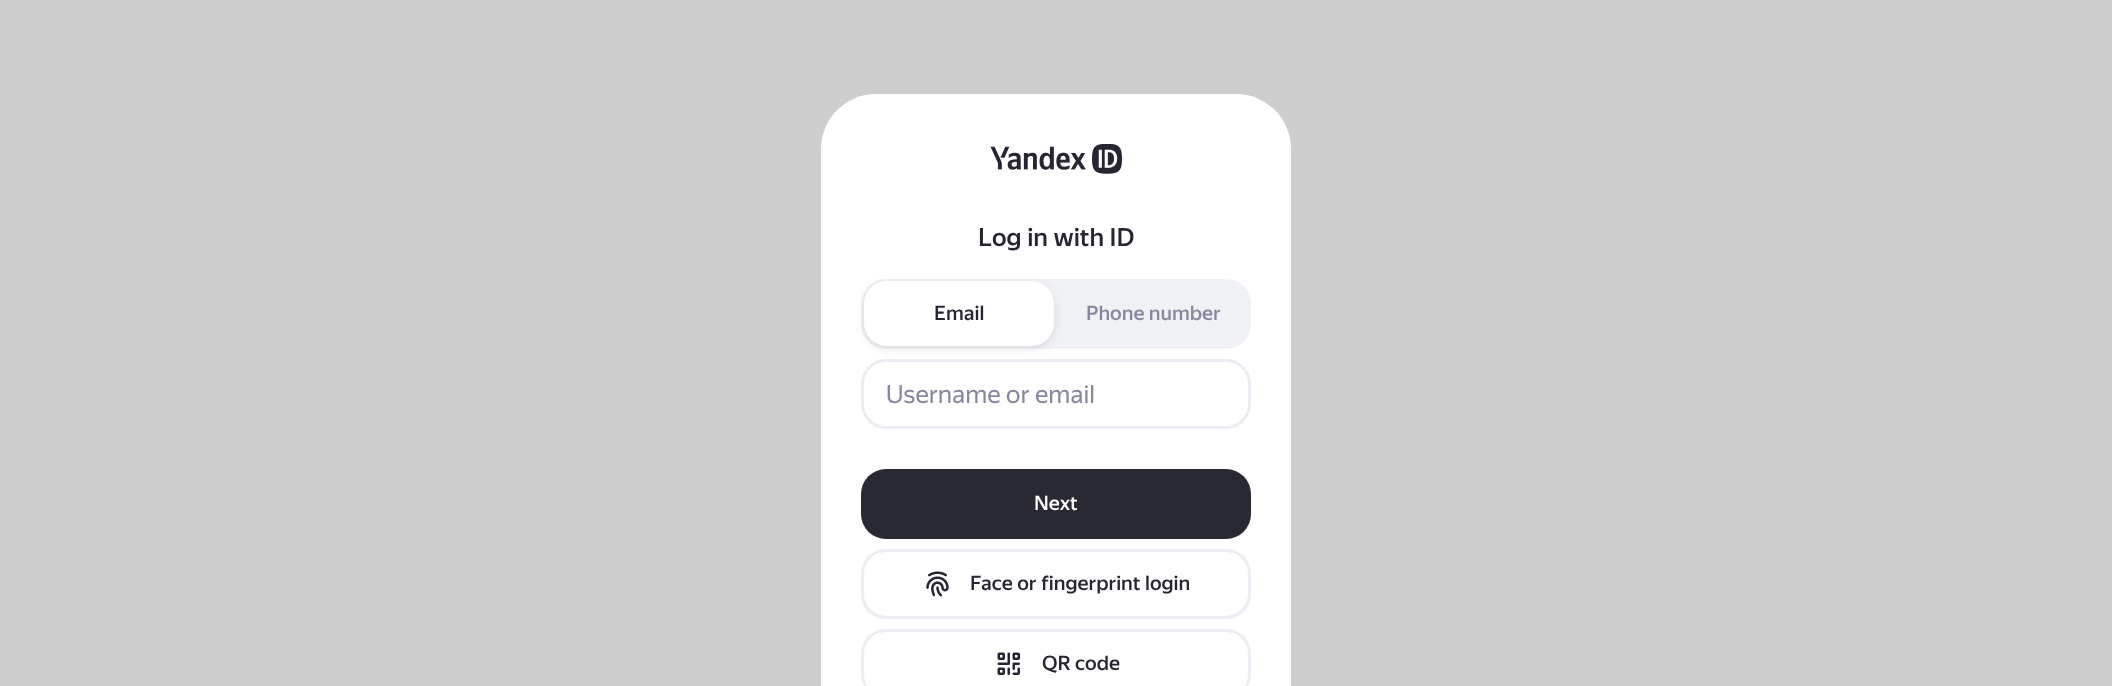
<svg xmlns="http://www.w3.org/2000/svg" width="2112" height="686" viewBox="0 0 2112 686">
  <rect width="100%" height="100%" fill="#cdcdcd"/>
  <rect x="821" y="94" width="470" height="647" rx="55" fill="#fff"/>
  <image x="990" y="144" width="132" height="30" href="img/1.png"/>
  <rect x="861" y="279" width="390" height="70" rx="25" fill="#f0f1f5"/>
  <rect x="864" y="284" width="190" height="65" rx="23" fill="#2929331a" filter="blur(4px)"/>
  <rect x="864" y="281" width="190" height="65" rx="23" fill="#fff"/>
  <rect x="862.5" y="360.5" width="387" height="67" rx="23.5" fill="none" stroke="#ebedf2" stroke-width="3"/>
  <rect x="861" y="469" width="390" height="70" rx="25" fill="#292933"/>
  <rect x="862.5" y="550.5" width="387" height="67" rx="23.5" fill="none" stroke="#ecedf2" stroke-width="3"/>
  <image x="926" y="571" width="23" height="26" href="img/2.png"/>
  <rect x="862.5" y="630.5" width="387" height="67" rx="23.5" fill="none" stroke="#ecedf2" stroke-width="3"/>
  <image x="997" y="652" width="23" height="23" href="img/3.png"/>
  <text x="978" y="246" font-family="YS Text" font-size="25" font-weight="500" fill="#262633">Log in with ID</text>
  <text x="934" y="320" font-family="YS Text" font-size="20" font-weight="500" fill="#262633">Email</text>
  <text x="1086" y="320" font-family="YS Text" font-size="20" font-weight="500" fill="#85889e">Phone number</text>
  <text x="886" y="403" font-family="YS Text" font-size="25" fill="#85889e">Username or email</text>
  <text x="1034" y="510" font-family="YS Text" font-size="20" font-weight="500" fill="#fff">Next</text>
  <g font-family="YS Text" font-size="20" font-weight="500" fill="#262633">
    <text x="970" y="590">Face or fingerprint login</text>
    <text x="1042" y="670">QR code</text>
  </g>
</svg>
